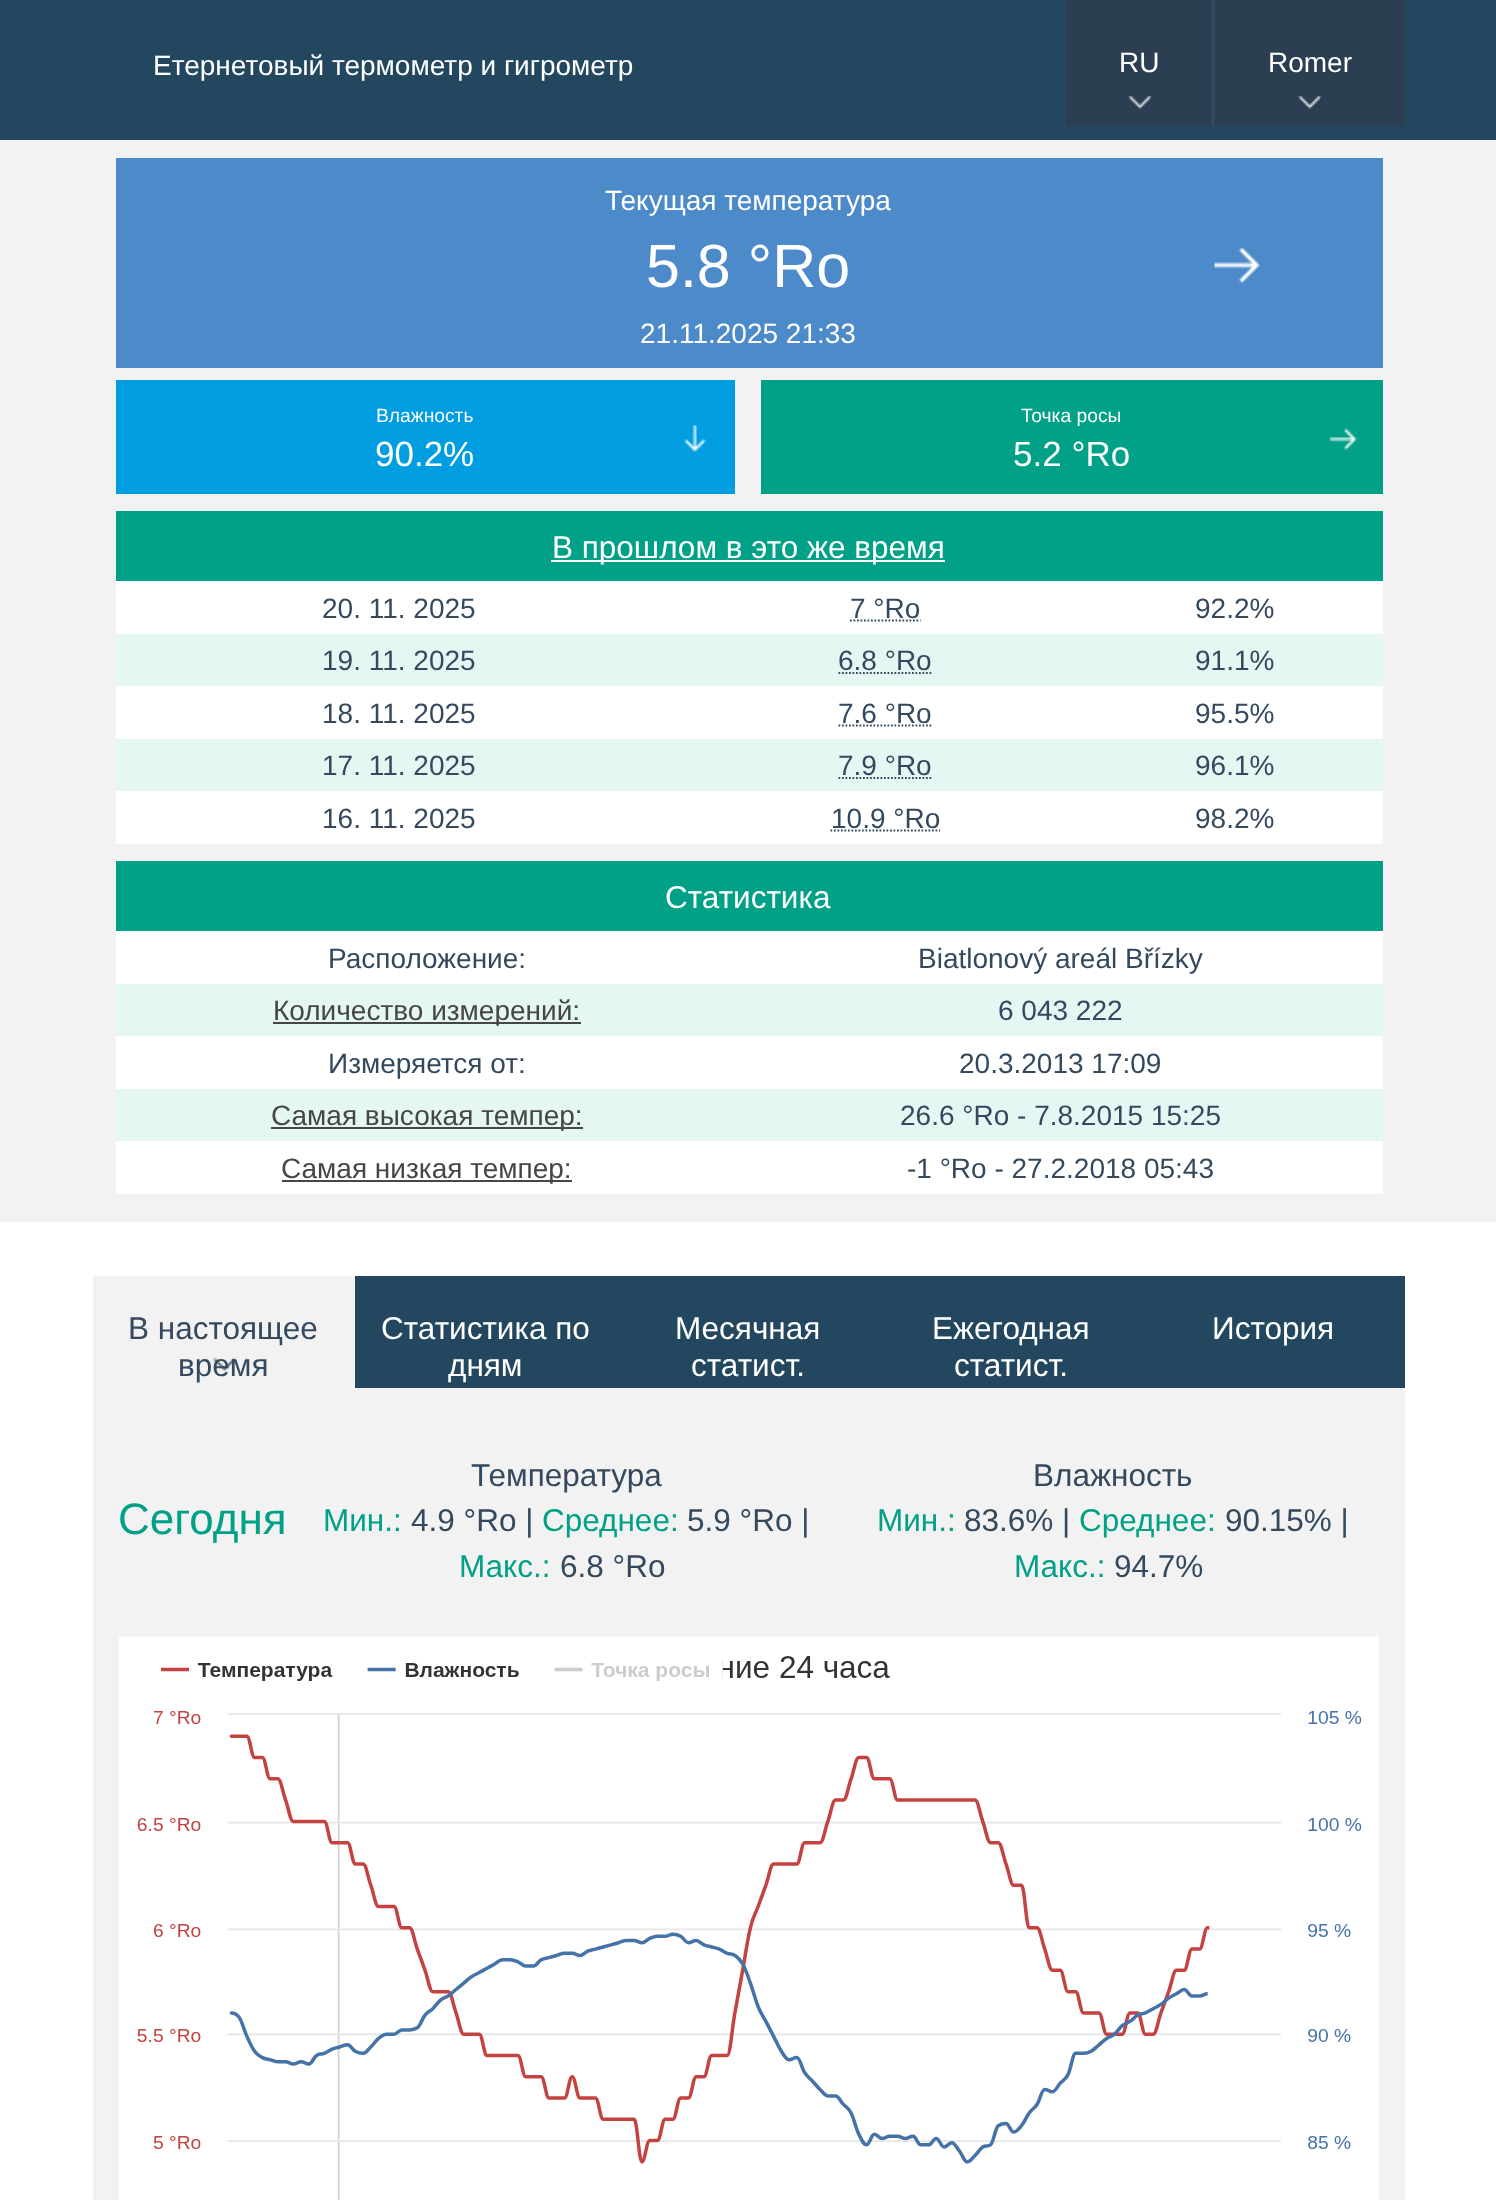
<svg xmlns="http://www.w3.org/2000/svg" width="1496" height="2200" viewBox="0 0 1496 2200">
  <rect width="100%" height="100%" fill="#fff"/>
  <path d="M0 0h1496v140H0z" fill="#23475f"/>
  <path d="M1066 0h339v126H1066z" fill="#2c3f52"/>
  <image x="1128" y="95" width="24" height="14" href="img/1.png"/>
  <path d="M1211 0h4v126H1211z" fill="#34495e"/>
  <image x="1298" y="95" width="24" height="14" href="img/2.png"/>
  <path d="M0 140h1496v1082H0z" fill="#f2f2f2"/>
  <path d="M116 158h1267v210H116z" fill="#4c8aca"/>
  <image x="1214" y="246" width="46" height="38" href="img/3.png"/>
  <path d="M116 380h619v114H116z" fill="#009de1"/>
  <image x="684" y="424" width="22" height="28" href="img/4.png"/>
  <path d="M761 380h622v114H761z" fill="#00a186"/>
  <image x="1329" y="428" width="28" height="23" href="img/5.png"/>
  <path d="M116 511h1267v70H116z" fill="#00a186"/>
  <path d="M551 560h394v2H551z" fill="#fff"/>
  <path d="M116 581h1267v53H116z" fill="#fff"/>
  <path d="M850 620.5H920.5" fill="none" stroke="#34495e" stroke-width="1.8" stroke-dasharray="1.75 1.75"/>
  <path d="M116 634h1267v52H116z" fill="#e4f7f3"/>
  <path d="M838.5 673H932" fill="none" stroke="#34495e" stroke-width="1.8" stroke-dasharray="1.75 1.75"/>
  <path d="M116 686h1267v53H116z" fill="#fff"/>
  <path d="M838.5 725.5H932" fill="none" stroke="#34495e" stroke-width="1.8" stroke-dasharray="1.75 1.75"/>
  <path d="M116 739h1267v52H116z" fill="#e4f7f3"/>
  <path d="M838.5 778H932" fill="none" stroke="#34495e" stroke-width="1.8" stroke-dasharray="1.75 1.75"/>
  <path d="M116 791h1267v53H116z" fill="#fff"/>
  <path d="M830.5 830.5H940" fill="none" stroke="#34495e" stroke-width="1.8" stroke-dasharray="1.75 1.75"/>
  <path d="M116 861h1267v70H116z" fill="#00a186"/>
  <path d="M116 931h1267v53H116z" fill="#fff"/>
  <path d="M116 984h1267v52H116z" fill="#e4f7f3"/>
  <path d="M273 1022h308v2H273z" fill="#464646"/>
  <path d="M116 1036h1267v53H116z" fill="#fff"/>
  <path d="M116 1089h1267v52H116z" fill="#e4f7f3"/>
  <path d="M271 1127h312v2H271z" fill="#464646"/>
  <path d="M116 1141h1267v53H116z" fill="#fff"/>
  <path d="M282 1180h290v2H282z" fill="#464646"/>
  <path d="M93 1276h262v112H93z" fill="#f2f2f2"/>
  <image x="213" y="1357" width="23" height="14" href="img/6.png"/>
  <path d="M355 1276h1050v112H355z" fill="#23475f"/>
  <path d="M93 1388h1312v812H93z" fill="#f2f2f2"/>
  <image x="119" y="1636" width="1260" height="564" href="img/7.png"/>
  <g font-family="Liberation Sans" font-size="28" fill="#fff">
    <text x="153" y="75">Eтернетовый термометр и гигрометр</text>
    <text x="1119" y="72">RU</text>
    <text x="1268" y="72">Romer</text>
    <text x="605" y="210">Текущая температура</text>
  </g>
  <text x="646" y="287" font-family="Liberation Sans" font-size="61" fill="#fff">5.8 °Ro</text>
  <text x="640" y="343" font-family="Liberation Sans" font-size="28" fill="#fff">21.11.2025 21:33</text>
  <text x="376" y="422" font-family="Liberation Sans" font-size="19.25" fill="#fff">Влажность</text>
  <text x="375" y="466" font-family="Liberation Sans" font-size="35" fill="#fff">90.2%</text>
  <text x="1021" y="422" font-family="Liberation Sans" font-size="19.25" fill="#fff">Точка росы</text>
  <text x="1013" y="466" font-family="Liberation Sans" font-size="35" fill="#fff">5.2 °Ro</text>
  <text x="552" y="558" font-family="Liberation Sans" font-size="31.5" fill="#fff">В прошлом в это же время</text>
  <g font-family="Liberation Sans" font-size="28" fill="#34495e">
    <text x="322" y="618">20. 11. 2025</text>
    <text x="850" y="618">7 °Ro</text>
    <text x="1195" y="618">92.2%</text>
    <text x="322" y="670">19. 11. 2025</text>
    <text x="838" y="670">6.8 °Ro</text>
    <text x="1195" y="670">91.1%</text>
    <text x="322" y="723">18. 11. 2025</text>
    <text x="838" y="723">7.6 °Ro</text>
    <text x="1195" y="723">95.5%</text>
    <text x="322" y="775">17. 11. 2025</text>
    <text x="838" y="775">7.9 °Ro</text>
    <text x="1195" y="775">96.1%</text>
    <text x="322" y="828">16. 11. 2025</text>
    <text x="831" y="828">10.9 °Ro</text>
    <text x="1195" y="828">98.2%</text>
  </g>
  <text x="665" y="908" font-family="Liberation Sans" font-size="31.5" fill="#fff">Статистика</text>
  <g font-family="Liberation Sans" font-size="28" fill="#34495e">
    <text x="328" y="968">Расположение:</text>
    <text x="918" y="968">Biatlonový areál Břízky</text>
  </g>
  <text x="273" y="1020" font-family="Liberation Sans" font-size="28" fill="#464646">Количество измерений:</text>
  <g font-family="Liberation Sans" font-size="28" fill="#34495e">
    <text x="998" y="1020">6 043 222</text>
    <text x="328" y="1073">Измеряется от:</text>
    <text x="959" y="1073">20.3.2013 17:09</text>
  </g>
  <text x="271" y="1125" font-family="Liberation Sans" font-size="28" fill="#464646">Самая высокая темпер:</text>
  <text x="900" y="1125" font-family="Liberation Sans" font-size="28" fill="#34495e">26.6 °Ro - 7.8.2015 15:25</text>
  <text x="281" y="1178" font-family="Liberation Sans" font-size="28" fill="#464646">Самая низкая темпер:</text>
  <text x="907" y="1178" font-family="Liberation Sans" font-size="28" fill="#34495e">-1 °Ro - 27.2.2018 05:43</text>
  <g font-family="Liberation Sans" font-size="31.5" fill="#34495e">
    <text x="128" y="1339">В настоящее</text>
    <text x="178" y="1376">время</text>
  </g>
  <g font-family="Liberation Sans" font-size="31.5" fill="#fff">
    <text x="381" y="1339">Статистика по</text>
    <text x="448" y="1376">дням</text>
    <text x="675" y="1339">Месячная</text>
    <text x="691" y="1376">статист.</text>
    <text x="932" y="1339">Ежегодная</text>
    <text x="954" y="1376">статист.</text>
    <text x="1212" y="1339">История</text>
  </g>
  <text x="118" y="1534" font-family="Liberation Sans" font-size="44" fill="#00a186">Сегодня</text>
  <text x="471" y="1486" font-family="Liberation Sans" font-size="31.5" fill="#34495e">Температура</text>
  <text x="323" y="1531" font-family="Liberation Sans" font-size="31.5" fill="#00a186">Мин.:</text>
  <text x="411" y="1531" font-family="Liberation Sans" font-size="31.5" fill="#34495e">4.9 °Ro |</text>
  <text x="542" y="1531" font-family="Liberation Sans" font-size="31.5" fill="#00a186">Среднее:</text>
  <text x="687" y="1531" font-family="Liberation Sans" font-size="31.5" fill="#34495e">5.9 °Ro |</text>
  <text x="459" y="1577" font-family="Liberation Sans" font-size="31.5" fill="#00a186">Макс.:</text>
  <g font-family="Liberation Sans" font-size="31.5" fill="#34495e">
    <text x="560" y="1577">6.8 °Ro</text>
    <text x="1033" y="1486">Влажность</text>
  </g>
  <text x="877" y="1531" font-family="Liberation Sans" font-size="31.5" fill="#00a186">Мин.:</text>
  <text x="964" y="1531" font-family="Liberation Sans" font-size="31.5" fill="#34495e">83.6% |</text>
  <text x="1079" y="1531" font-family="Liberation Sans" font-size="31.5" fill="#00a186">Среднее:</text>
  <text x="1225" y="1531" font-family="Liberation Sans" font-size="31.5" fill="#34495e">90.15% |</text>
  <text x="1014" y="1577" font-family="Liberation Sans" font-size="31.5" fill="#00a186">Макс.:</text>
  <text x="1114" y="1577" font-family="Liberation Sans" font-size="31.5" fill="#34495e">94.7%</text>
</svg>
